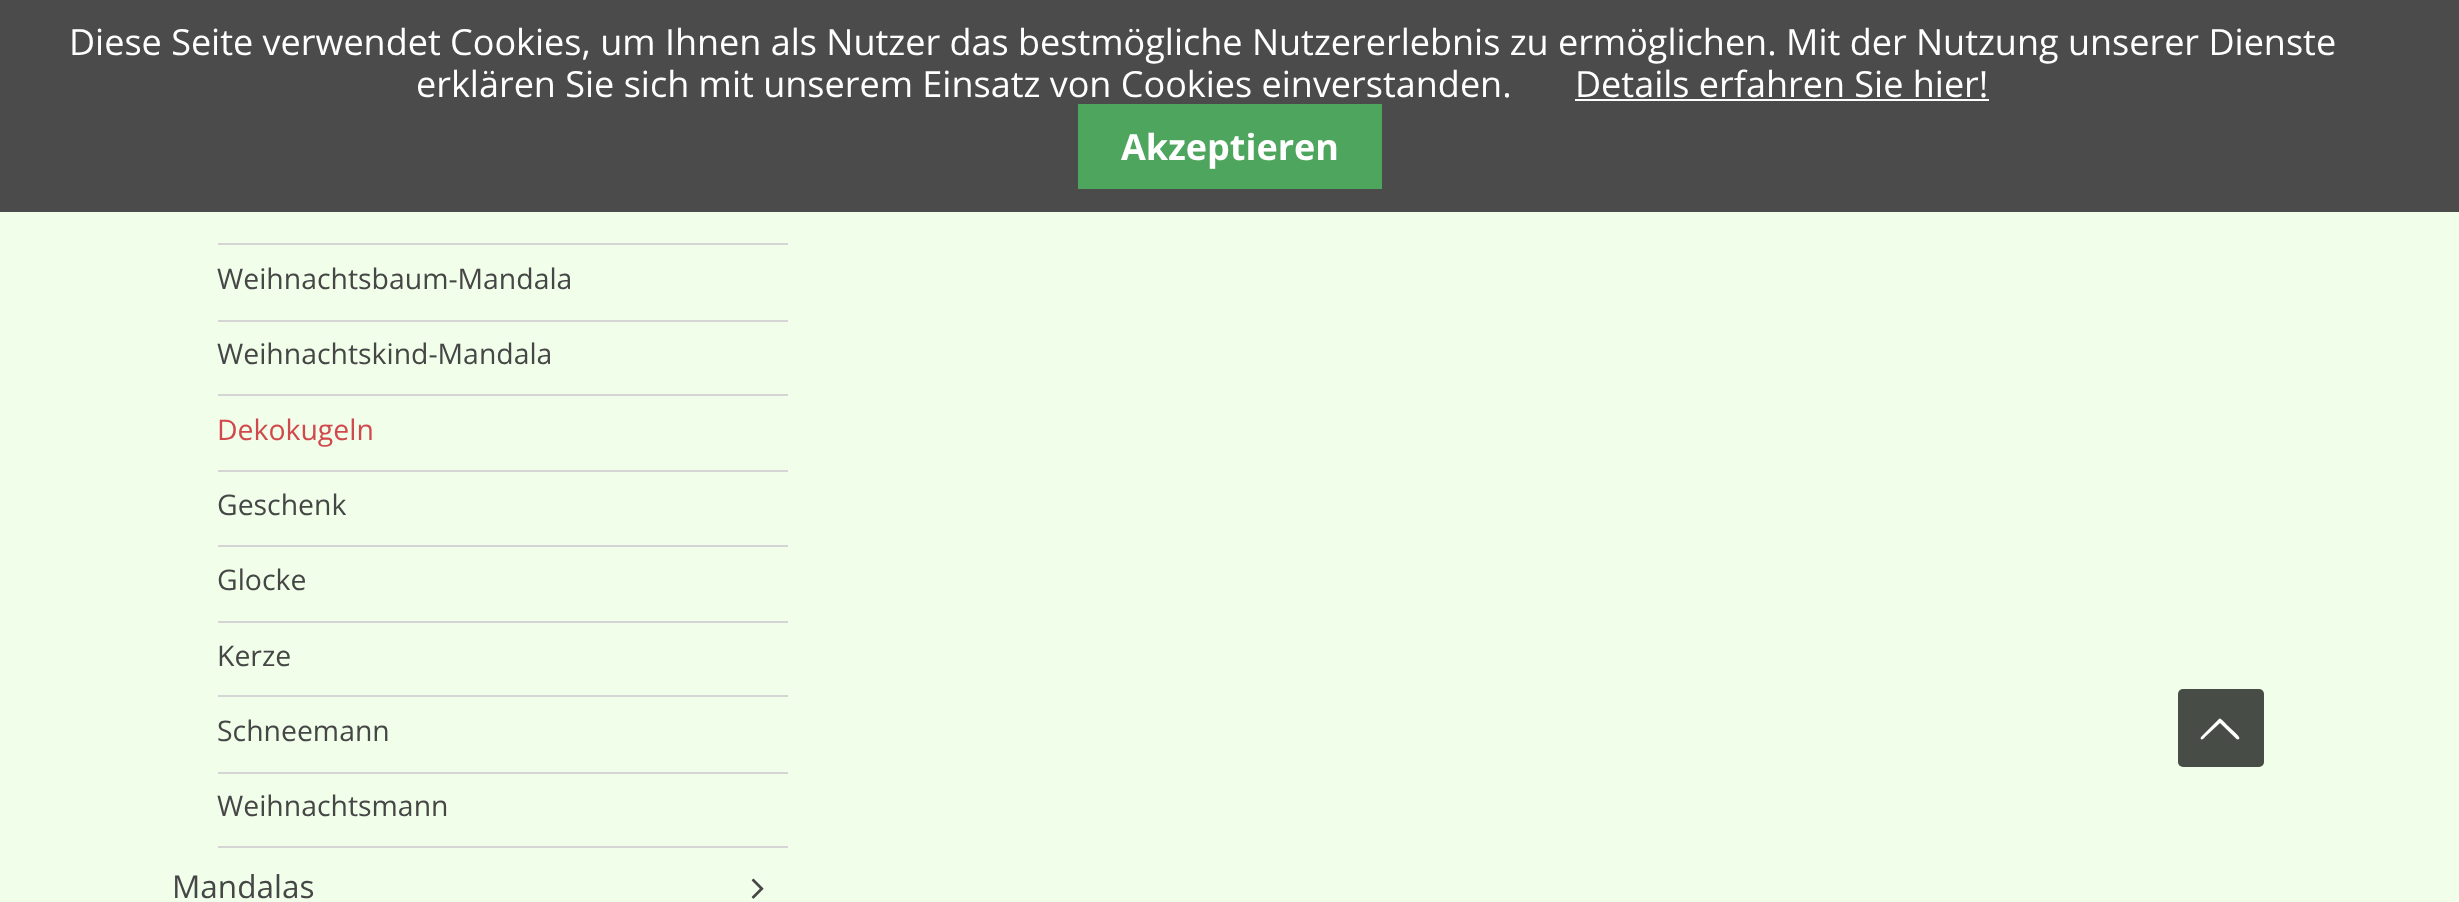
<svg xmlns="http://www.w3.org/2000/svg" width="2459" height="902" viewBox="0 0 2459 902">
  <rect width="100%" height="100%" fill="#f0feea"/>
  <path d="M0 0h2459v212H0z" fill="#4b4b4b"/>
  <path d="M1575 99h414v2H1575z" fill="#fff"/>
  <path d="M1078 104h304v85H1078z" fill="#4ea55e"/>
  <path d="M218 243h570v2H218z" fill="#d5d5d5"/>
  <path d="M218 320h570v2H218z" fill="#d5d5d5"/>
  <path d="M218 394h570v2H218z" fill="#d5d5d5"/>
  <path d="M218 470h570v2H218z" fill="#d5d5d5"/>
  <path d="M218 545h570v2H218z" fill="#d5d5d5"/>
  <path d="M218 621h570v2H218z" fill="#d5d5d5"/>
  <path d="M218 695h570v2H218z" fill="#d5d5d5"/>
  <path d="M218 772h570v2H218z" fill="#d5d5d5"/>
  <path d="M218 846h570v2H218z" fill="#d5d5d5"/>
  <image x="751" y="878" width="13" height="21" href="img/1.png"/>
  <rect x="2178" y="689" width="86" height="78" rx="5" fill="#484c46"/>
  <path d="M2236.5 739L2220 723L2206 736C2205 737 2202 741.5 2200.5 738.5L2201 737L2219.5 718.5C2221 718 2226 724 2227 725L2236 733.5C2236 734 2242 738.5 2238 739.5Z" fill="#fff"/>
  <g font-family="Open Sans" font-size="36" fill="#fff">
    <text x="69" y="55">Diese Seite verwendet Cookies, um Ihnen als Nutzer das bestmögliche Nutzererlebnis zu ermöglichen. Mit der Nutzung unserer Dienste</text>
    <text x="416" y="97">erklären Sie sich mit unserem Einsatz von Cookies einverstanden.</text>
    <text x="1575" y="97">Details erfahren Sie hier!</text>
  </g>
  <text x="1121" y="160" font-family="Open Sans" font-size="36" font-weight="bold" fill="#fff">Akzeptieren</text>
  <g font-family="Open Sans" font-size="28.4" fill="#454645">
    <text x="217" y="289">Weihnachtsbaum-Mandala</text>
    <text x="217" y="364">Weihnachtskind-Mandala</text>
  </g>
  <text x="217" y="440" font-family="Open Sans" font-size="28.4" fill="#d1494c">Dekokugeln</text>
  <g font-family="Open Sans" font-size="28.4" fill="#454645">
    <text x="217" y="515">Geschenk</text>
    <text x="217" y="590">Glocke</text>
    <text x="217" y="666">Kerze</text>
    <text x="217" y="741">Schneemann</text>
    <text x="217" y="816">Weihnachtsmann</text>
  </g>
  <text x="172" y="898" font-family="Open Sans" font-size="31.5" fill="#454645">Mandalas</text>
</svg>
